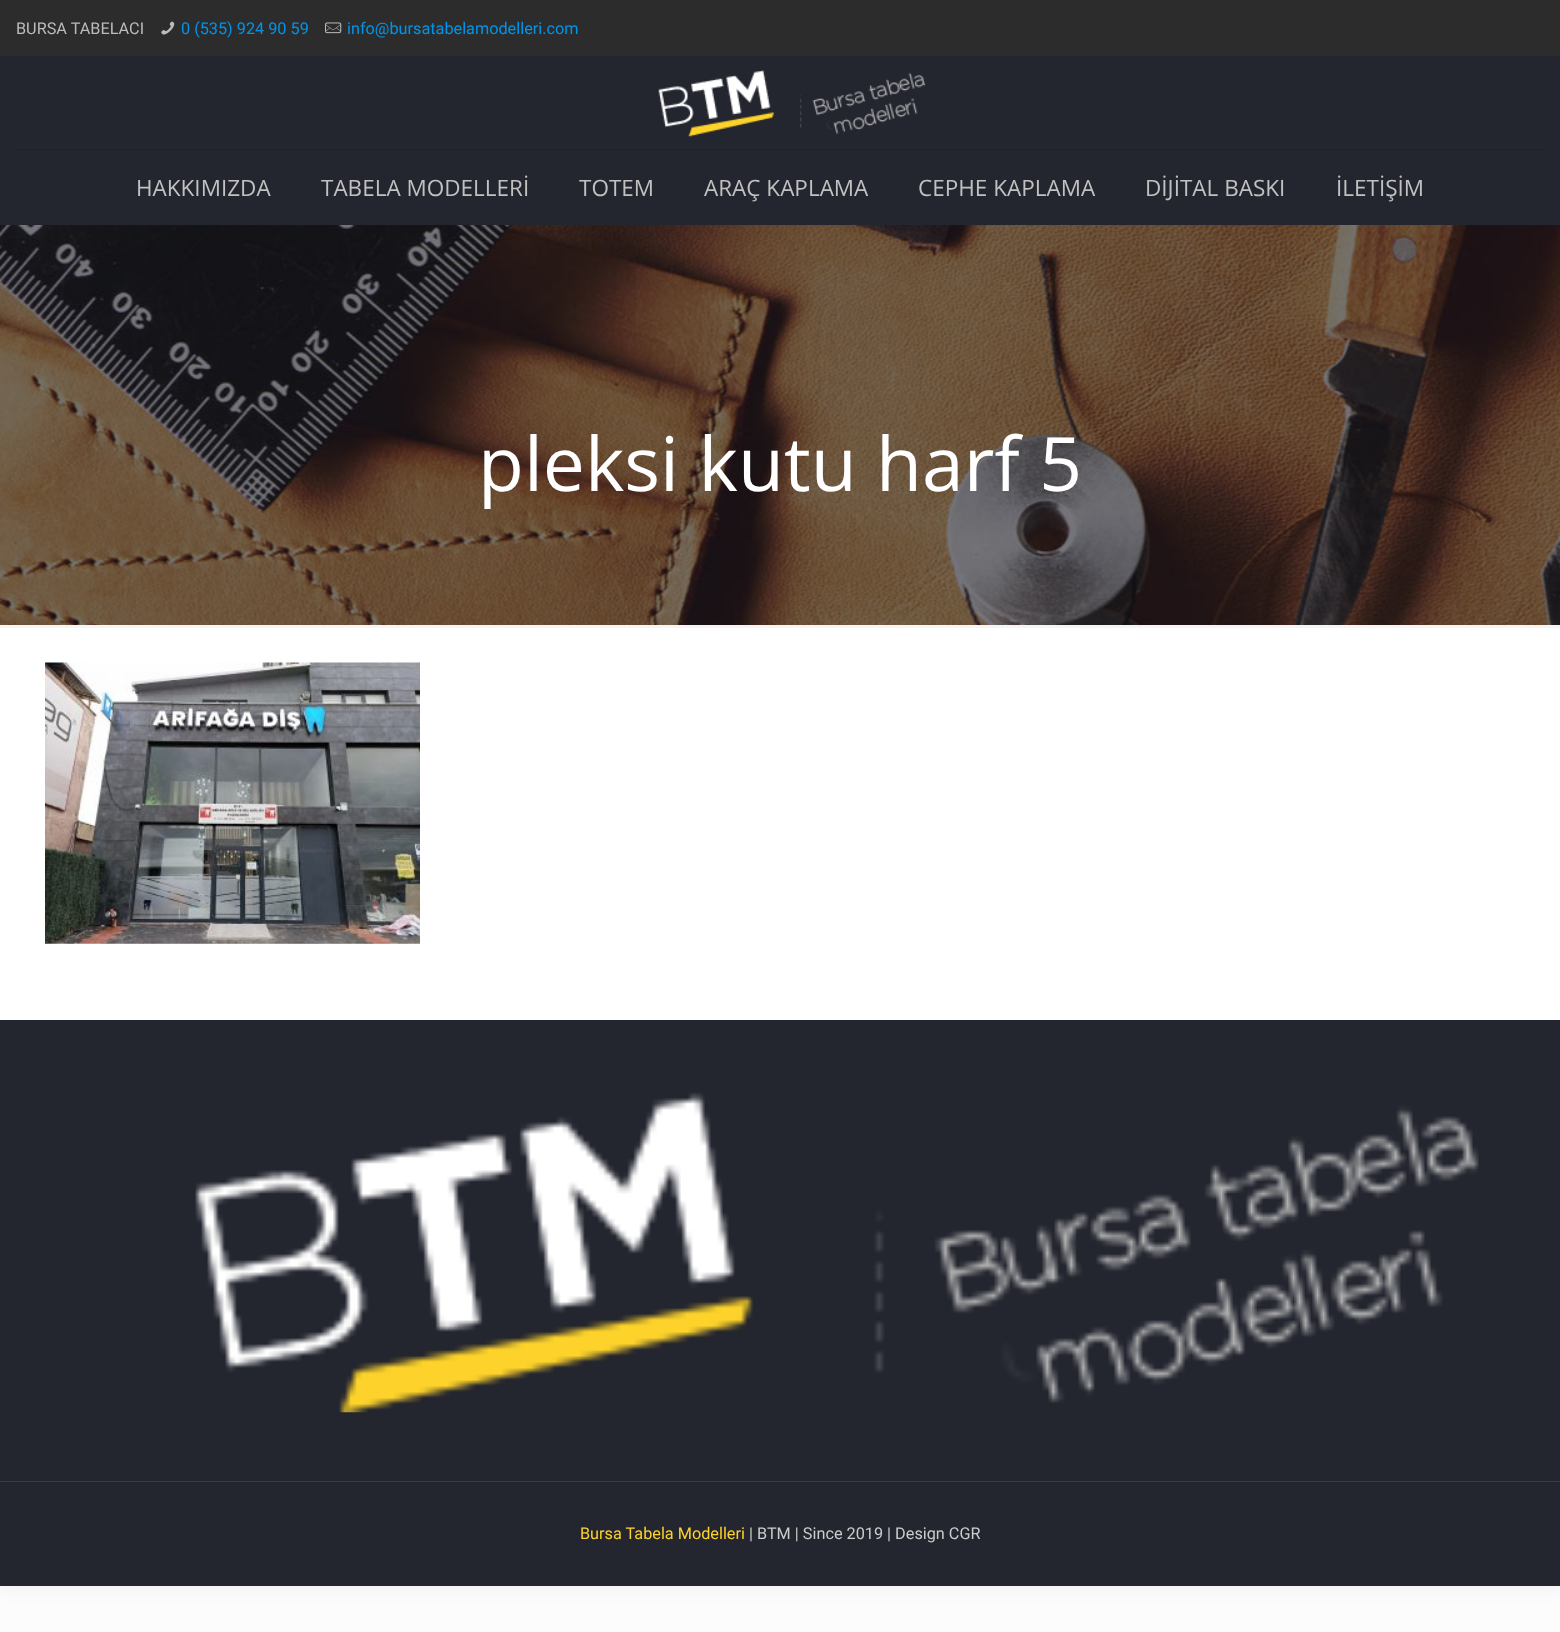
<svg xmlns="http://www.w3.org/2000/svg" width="1560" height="1632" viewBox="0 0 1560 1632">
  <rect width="100%" height="100%" fill="#fcfcfc"/>
  <path d="M0 0h1560v1586H0z" fill="#0000000f" filter="blur(9.5px)"/>
  <path d="M0 628h1560v392H0z" fill="#fff"/>
  <image x="0" y="225" width="1560" height="400" href="img/1.png"/>
  <path d="M0 0h1560v56H0z" fill="#2c2c2c"/>
  <image x="161" y="21" width="14" height="14" href="img/2.png"/>
  <image x="325" y="22" width="17" height="12" href="img/3.png"/>
  <path d="M0 56h1560v169H0z" fill="#23252f"/>
  <path d="M15 149h1530v1H15z" fill="#20222b"/>
  <image x="658" y="70" width="268" height="67" href="img/4.png"/>
  <path d="M0 625h1560v3H0z" fill="#f5f5f5"/>
  <image x="45" y="662" width="375" height="282" href="img/5.png"/>
  <path d="M0 1020h1560v566H0z" fill="#23252f"/>
  <image x="195" y="1092" width="1284" height="321" href="img/6.png"/>
  <path d="M0 1481h1560v1H0z" fill="#393b44"/>
  <text x="16" y="34" font-family="Roboto" font-size="16.25" fill="#bbb">BURSA TABELACI</text>
  <g font-family="Roboto" font-size="16.25" fill="#0095eb">
    <text x="181" y="34">0 (535) 924 90 59</text>
    <text x="347" y="34">info@bursatabelamodelleri.com</text>
  </g>
  <g font-family="Open Sans" font-size="22.5" fill="#c1c1c1">
    <text x="136" y="196">HAKKIMIZDA</text>
    <text x="321" y="196">TABELA MODELLERİ</text>
    <text x="579" y="196">TOTEM</text>
    <text x="704" y="196">ARAÇ KAPLAMA</text>
    <text x="918" y="196">CEPHE KAPLAMA</text>
    <text x="1145" y="196">DİJİTAL BASKI</text>
    <text x="1336" y="196">İLETİŞİM</text>
  </g>
  <text x="478" y="491" font-family="Open Sans" font-size="75" fill="#fff">pleksi kutu harf 5</text>
  <text x="580" y="1539" font-family="Roboto" font-size="16.25" fill="#fdd32b">Bursa Tabela Modelleri</text>
  <text x="749" y="1539" font-family="Roboto" font-size="16.25" fill="#ccc">| BTM | Since 2019 | Design CGR</text>
</svg>
